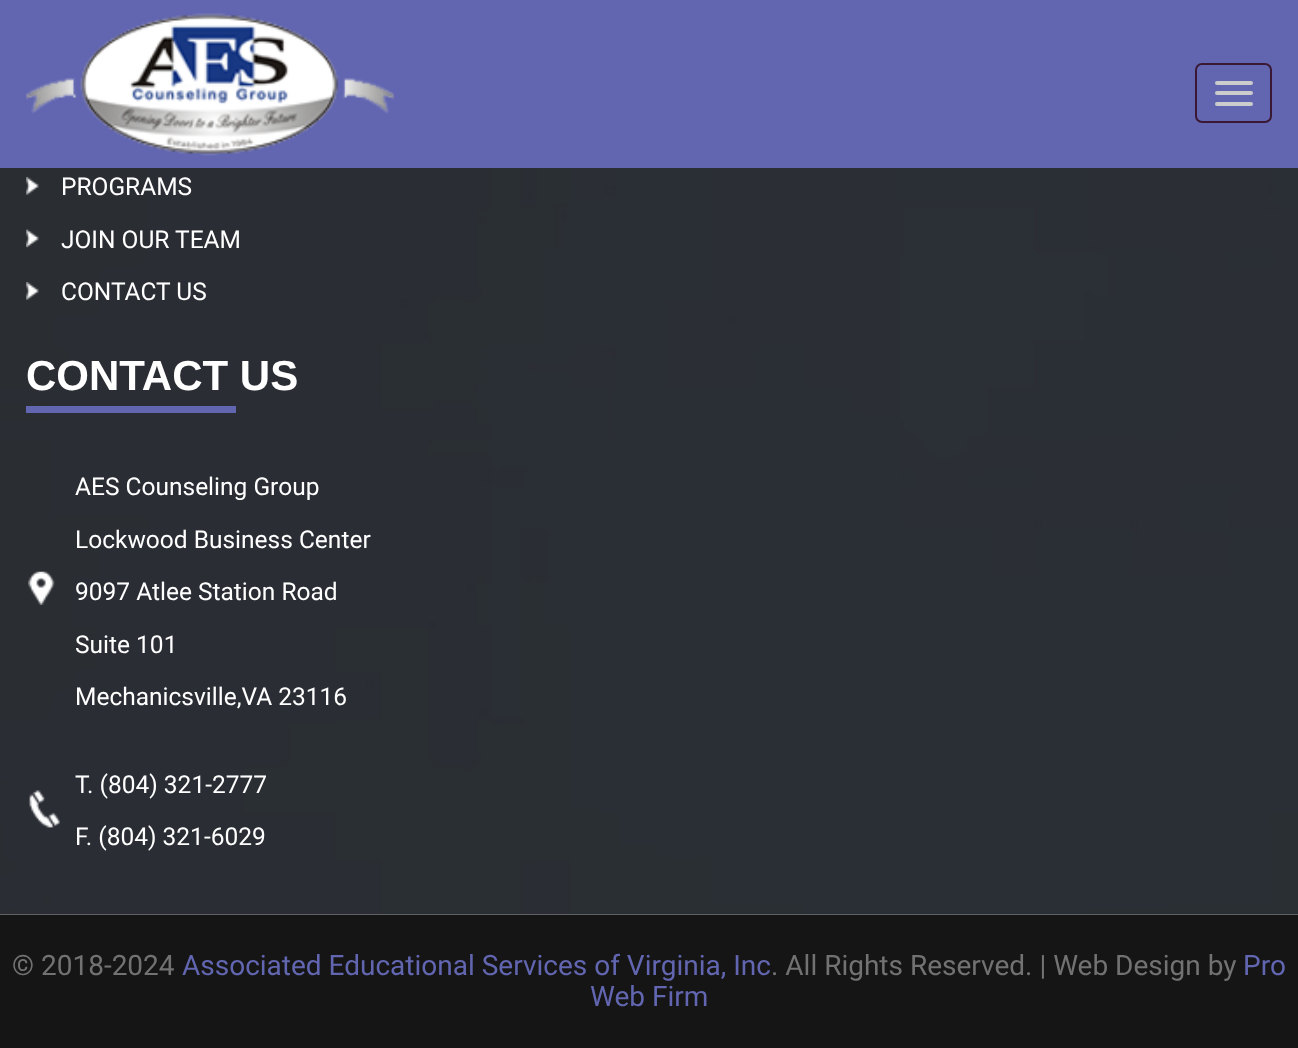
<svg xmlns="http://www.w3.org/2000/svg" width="1298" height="1048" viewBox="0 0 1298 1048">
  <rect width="100%" height="100%" fill="#fff"/>
  <path d="M0 0h1298v168H0z" fill="#6266b0"/>
  <image x="26" y="13" width="368" height="143" href="img/1.png"/>
  <rect x="1196" y="64" width="75" height="58" rx="6" fill="none" stroke="#3a1833" stroke-width="2"/>
  <rect x="1215" y="81" width="38" height="4" rx="2" fill="#ccc"/>
  <rect x="1215" y="91" width="38" height="4" rx="2" fill="#ccc"/>
  <rect x="1215" y="102" width="38" height="4" rx="2" fill="#ccc"/>
  <image x="0" y="168" width="1298" height="747" href="img/2.png"/>
  <image x="26" y="177" width="13" height="18" href="img/3.png"/>
  <image x="26" y="229" width="13" height="19" href="img/4.png"/>
  <image x="26" y="282" width="13" height="18" href="img/3.png"/>
  <path d="M26 406h210v7H26z" fill="#6266b0"/>
  <image x="28" y="571" width="27" height="34" href="img/5.png"/>
  <image x="28" y="790" width="32" height="38" href="img/6.png"/>
  <path d="M0 915h1298v133H0z" fill="#151515"/>
  <g font-family="Roboto" font-size="24.5" fill="#fff">
    <text x="61" y="195">PROGRAMS</text>
    <text x="61" y="248">JOIN OUR TEAM</text>
    <text x="61" y="300">CONTACT US</text>
  </g>
  <text x="26" y="390" font-family="Liberation Sans" font-size="42" font-weight="bold" fill="#fff">CONTACT US</text>
  <g font-family="Roboto" font-size="24.5" fill="#fff">
    <text x="75" y="495">AES Counseling Group</text>
    <text x="75" y="548">Lockwood Business Center</text>
    <text x="75" y="600">9097 Atlee Station Road</text>
    <text x="75" y="653">Suite 101</text>
    <text x="75" y="705">Mechanicsville,VA 23116</text>
    <text x="75" y="793">T. (804) 321-2777</text>
    <text x="75" y="845">F. (804) 321-6029</text>
  </g>
  <text x="12" y="975" font-family="Roboto" font-size="28" fill="#727272">© 2018-2024</text>
  <text x="182" y="975" font-family="Roboto" font-size="28" fill="#6266b0">Associated Educational Services of Virginia, Inc</text>
  <text x="771" y="975" font-family="Roboto" font-size="28" fill="#727272">. All Rights Reserved. | Web Design by</text>
  <g font-family="Roboto" font-size="28" fill="#6266b0">
    <text x="1243" y="975">Pro</text>
    <text x="590" y="1006">Web Firm</text>
  </g>
</svg>
